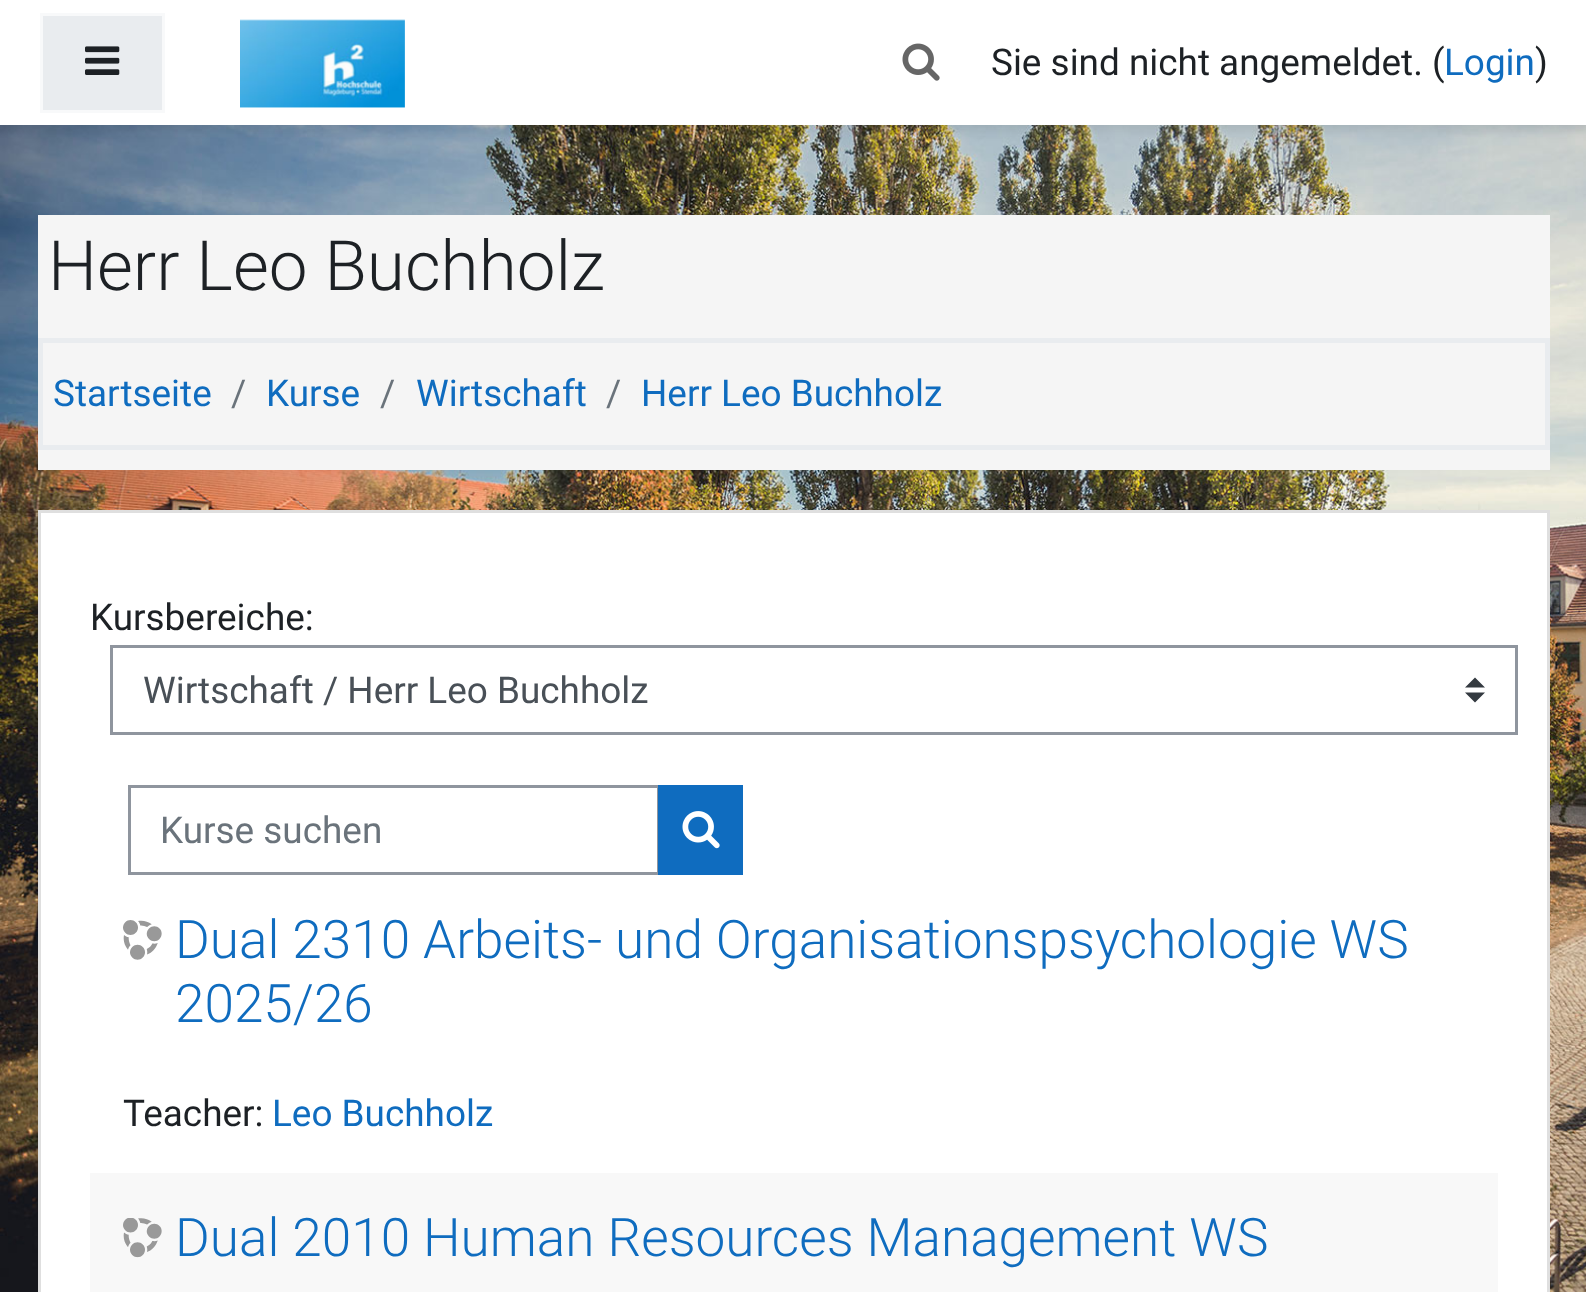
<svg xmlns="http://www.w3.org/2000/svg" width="1586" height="1292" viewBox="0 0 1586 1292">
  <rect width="100%" height="100%" fill="#fff"/>
  <image x="0" y="125" width="1586" height="1167" href="img/1.png"/>
  <path d="M0 5h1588v125H0z" fill="#00000014" filter="blur(5px)"/>
  <path d="M0 0h1586v125H0z" fill="#fff"/>
  <path d="M41.5 14.5h122v97H41.5z" fill="#e9ecef" stroke="#f8f9fa" stroke-width="3"/>
  <image x="85" y="46" width="35" height="29" href="img/2.png"/>
  <image x="240" y="19" width="165" height="89" href="img/3.png"/>
  <image x="902" y="43" width="38" height="38" href="img/4.png"/>
  <path d="M38 215h1512v255H38z" fill="#f5f5f5"/>
  <path d="M40.5 340.5h1507v107H40.5z" fill="none" stroke="#e9ecef" stroke-width="5"/>
  <path d="M39.5 511.5h1509v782H39.5z" fill="#fff" stroke="#dfdfdf" stroke-width="3"/>
  <path d="M1475 677.5L1465 687.5H1485ZM1475 702.5L1465 692.5H1485Z" fill="#343a40"/>
  <path d="M111.5 646.5h1405v87H111.5z" fill="none" stroke="#8f959e" stroke-width="3"/>
  <path d="M129.5 786.5h529v87H129.5z" fill="none" stroke="#8f959e" stroke-width="3"/>
  <path d="M658 785h85v90H658z" fill="#0f6cbf"/>
  <image x="682" y="811" width="38" height="38" href="img/5.png"/>
  <image x="123" y="920" width="39" height="40" href="img/6.png"/>
  <path d="M90 1173h1408v119H90z" fill="#f8f8f8"/>
  <image x="123" y="1218" width="39" height="40" href="img/7.png"/>
  <text x="991" y="75" font-family="Roboto" font-size="36.9" fill="#1d2125">Sie sind nicht angemeldet. (</text>
  <text x="1444" y="75" font-family="Roboto" font-size="36.9" fill="#0f6cbf">Login</text>
  <text x="1535" y="75" font-family="Roboto" font-size="36.9" fill="#1d2125">)</text>
  <text x="48" y="290" font-family="Roboto" font-size="69.25" font-weight="300" fill="#1d2125">Herr Leo Buchholz</text>
  <text x="53" y="406" font-family="Roboto" font-size="36.9" fill="#0f6cbf">Startseite</text>
  <text x="231" y="406" font-family="Roboto" font-size="36.9" fill="#6a737b">/</text>
  <text x="266" y="406" font-family="Roboto" font-size="36.9" fill="#0f6cbf">Kurse</text>
  <text x="380" y="406" font-family="Roboto" font-size="36.9" fill="#6a737b">/</text>
  <text x="416" y="406" font-family="Roboto" font-size="36.9" fill="#0f6cbf">Wirtschaft</text>
  <text x="606" y="406" font-family="Roboto" font-size="36.9" fill="#6a737b">/</text>
  <text x="641" y="406" font-family="Roboto" font-size="36.9" fill="#0f6cbf">Herr Leo Buchholz</text>
  <text x="90" y="630" font-family="Roboto" font-size="36.9" fill="#1d2125">Kursbereiche:</text>
  <text x="143" y="703" font-family="Roboto" font-size="36.9" fill="#495057">Wirtschaft / Herr Leo Buchholz</text>
  <text x="160" y="843" font-family="Roboto" font-size="36.9" fill="#6a737b">Kurse suchen</text>
  <g font-family="Roboto" font-size="53.1" font-weight="300" fill="#0f6cbf">
    <text x="175" y="958">Dual 2310 Arbeits- und Organisationspsychologie WS</text>
    <text x="175" y="1022">2025/26</text>
  </g>
  <text x="123" y="1126" font-family="Roboto" font-size="36.9" fill="#1d2125">Teacher:</text>
  <text x="272" y="1126" font-family="Roboto" font-size="36.9" fill="#0f6cbf">Leo Buchholz</text>
  <text x="175" y="1256" font-family="Roboto" font-size="53.1" font-weight="300" fill="#0f6cbf">Dual 2010 Human Resources Management WS</text>
</svg>
